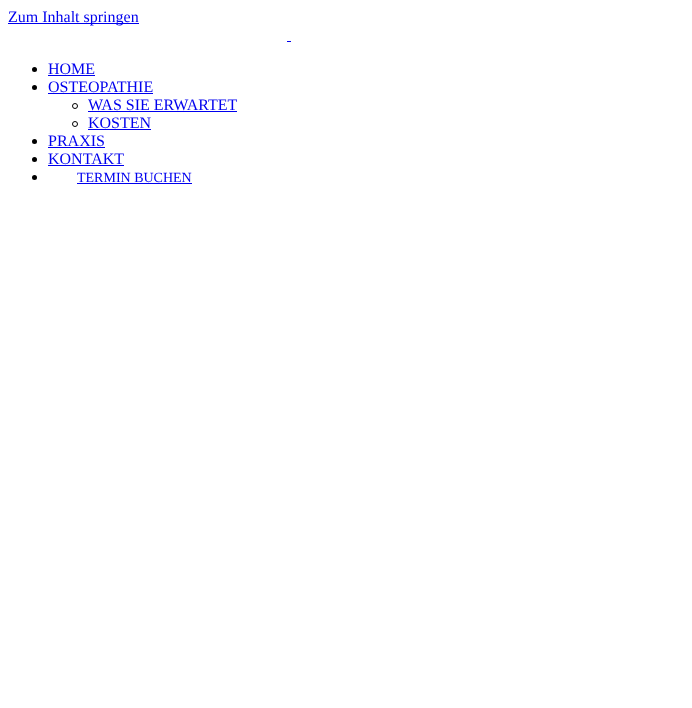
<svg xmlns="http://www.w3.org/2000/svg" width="692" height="708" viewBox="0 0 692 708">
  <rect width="100%" height="100%" fill="#fff"/>
  <path d="M8 23h131v1H8z" fill="#00e"/>
  <path d="M287 41h4v1H287z" fill="#00e"/>
  <circle cx="34.5" cy="69.5" r="2.5" fill="#000"/>
  <path d="M48 75h47v1H48z" fill="#00e"/>
  <circle cx="34.5" cy="87.5" r="2.5" fill="#000"/>
  <path d="M48 93h105v1H48z" fill="#00e"/>
  <circle cx="75" cy="106" r="2.5" fill="none" stroke="#000"/>
  <path d="M88 111h149v1H88z" fill="#00e"/>
  <circle cx="75" cy="124" r="2.5" fill="none" stroke="#000"/>
  <path d="M88 129h63v1H88z" fill="#00e"/>
  <circle cx="34.5" cy="141.5" r="2.5" fill="#000"/>
  <path d="M48 147h57v1H48z" fill="#00e"/>
  <circle cx="34.5" cy="159.5" r="2.5" fill="#000"/>
  <path d="M48 165h76v1H48z" fill="#00e"/>
  <circle cx="34.5" cy="177.5" r="2.5" fill="#000"/>
  <path d="M77 183h115v1H77z" fill="#00e"/>
  <g font-family="Liberation Serif" font-size="16" fill="#00e">
    <text x="8" y="22">Zum Inhalt springen</text>
    <text x="48" y="74">HOME</text>
    <text x="48" y="92">OSTEOPATHIE</text>
    <text x="88" y="110">WAS SIE ERWARTET</text>
    <text x="88" y="128">KOSTEN</text>
    <text x="48" y="146">PRAXIS</text>
    <text x="48" y="164">KONTAKT</text>
  </g>
  <text x="77" y="182" font-family="Liberation Serif" font-size="14" fill="#00e">TERMIN BUCHEN</text>
</svg>
